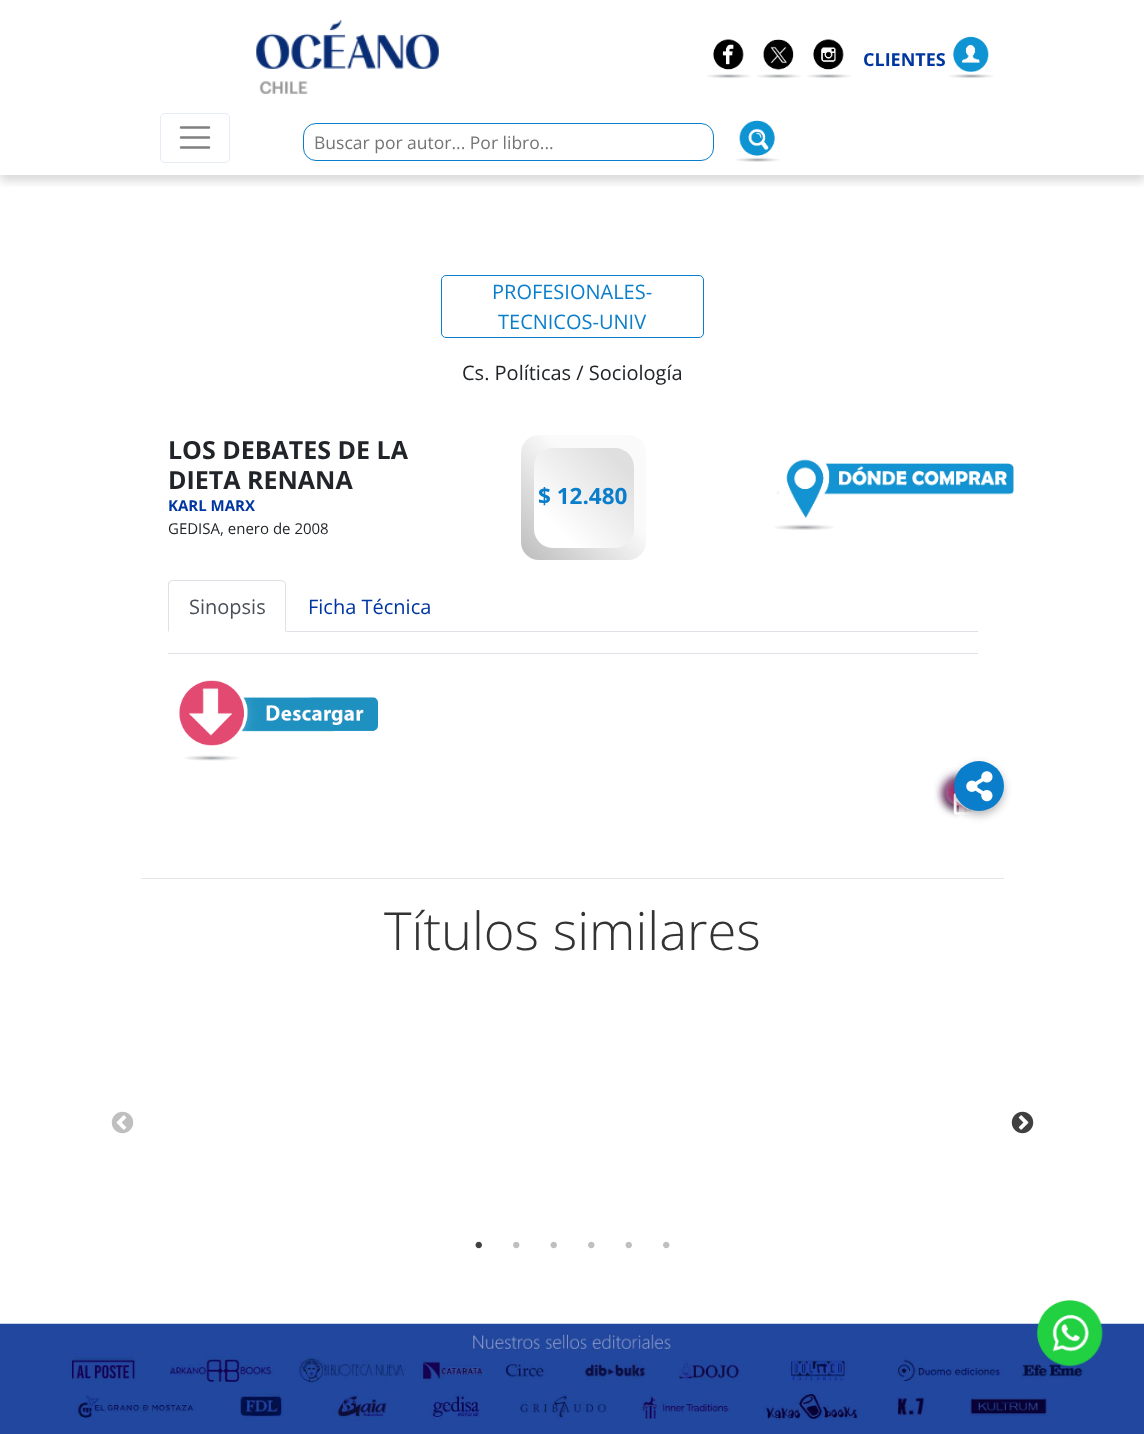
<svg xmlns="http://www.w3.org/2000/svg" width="1144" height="1434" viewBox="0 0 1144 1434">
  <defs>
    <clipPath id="clip1"><path d="M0 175h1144v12H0z"/></clipPath>
    <linearGradient id="g1" gradientUnits="userSpaceOnUse" x1="521" y1="560" x2="646" y2="435"><stop offset="0" stop-color="#bcbcbc"/><stop offset="0.6" stop-color="#fbfafa"/></linearGradient>
    <linearGradient id="g2" gradientUnits="userSpaceOnUse" x1="534" y1="548" x2="634" y2="448"><stop offset="0.21" stop-color="#fff"/><stop offset="0.85" stop-color="#dfdfdf"/></linearGradient>
    <clipPath id="clip2"><path d="M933 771H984V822H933ZM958.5 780C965.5 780 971 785.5 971 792.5C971 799.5 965.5 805 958.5 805C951.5 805 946 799.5 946 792.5C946 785.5 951.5 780 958.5 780Z" clip-rule="evenodd"/></clipPath>
  </defs>
  <rect width="100%" height="100%" fill="#fff"/>
  <g clip-path="url(#clip1)">
    <path d="M0 6h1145v175H0z" fill="#00000026" filter="blur(5px)"/>
  </g>
  <image x="256" y="19" width="183" height="75" href="img/1.png"/>
  <image x="707" y="39" width="44" height="40" href="img/2.png"/>
  <image x="757" y="39" width="44" height="40" href="img/3.png"/>
  <image x="807" y="39" width="44" height="40" href="img/4.png"/>
  <image x="949" y="36" width="45" height="43" href="img/5.png"/>
  <rect x="160.5" y="113.5" width="69" height="49" rx="4.5" fill="none" stroke="#e6ebf6"/>
  <path d="M181 127.5H209M181 137.5H209M181 147.5H209" fill="none" stroke="#808080" stroke-width="2.5" stroke-linecap="round"/>
  <rect x="303.5" y="123.5" width="410" height="37" rx="12.5" fill="none" stroke="#0a7eca"/>
  <image x="736" y="120" width="44" height="42" href="img/6.png"/>
  <rect x="441.5" y="275.5" width="262" height="62" rx="4.5" fill="none" stroke="#0a7eca"/>
  <rect x="521" y="435" width="125" height="125" rx="18" fill="url(#g1)"/>
  <rect x="534" y="448" width="100" height="100" rx="19" fill="url(#g2)"/>
  <image x="775" y="459" width="239" height="71" href="img/7.png"/>
  <path d="M286 631h692v1H286z" fill="#dee2e6"/>
  <path d="M172 580C171 580 170 581 169 582H170L172 581H281L284 582H285C284 581 283 580 281 580Z" fill="#dee2e6"/>
  <path d="M285 582C286 582 286 584 286 585V632L285 631V585C285 584 285 583 284 582Z" fill="#dee2e6"/>
  <path d="M286 632H168L169 631H285Z" fill="#fff"/>
  <path d="M169 582C168 582 168 584 168 585V632L169 631V585L170 582Z" fill="#dee2e6"/>
  <path d="M168 653h810v1H168z" fill="#dee2e6"/>
  <image x="179" y="680" width="199" height="81" href="img/8.png"/>
  <g clip-path="url(#clip2)">
    <rect x="946" y="784" width="25" height="25" rx="12.5" fill="#00000047" filter="blur(4px)"/>
  </g>
  <rect x="946" y="780" width="25" height="25" rx="12.5" fill="#343a40" filter="blur(6px)"/>
  <image x="956" y="795" width="23" height="22" href="img/10.png"/>
  <g clip-path="url(#clip2)">
    <rect x="946" y="784" width="25" height="25" rx="12.5" fill="#00000047" filter="blur(4px)"/>
  </g>
  <rect x="946" y="780" width="25" height="25" rx="12.5" fill="#3b5998" filter="blur(6px)"/>
  <image x="956" y="799" width="9" height="19" href="img/11.png"/>
  <g clip-path="url(#clip2)">
    <rect x="946" y="784" width="25" height="25" rx="12.5" fill="#00000047" filter="blur(4px)"/>
  </g>
  <rect x="946" y="780" width="25" height="25" rx="12.5" fill="#d22f71" filter="blur(6px)"/>
  <image x="953" y="793" width="31" height="22" href="img/12.png"/>
  <rect x="954" y="765" width="50" height="50" rx="25" fill="#00000047" filter="blur(4px)"/>
  <circle cx="979" cy="786" r="25" fill="#0a7eca"/>
  <image x="966" y="771" width="27" height="31" href="img/9.png"/>
  <path d="M141 878h863v1H141z" fill="#e6e6e6"/>
  <image x="111" y="1111" width="23" height="23" href="img/13.png"/>
  <image x="1011" y="1111" width="23" height="23" href="img/14.png"/>
  <image x="475" y="1241" width="7" height="8" href="img/15.png"/>
  <image x="513" y="1241" width="7" height="8" href="img/16.png"/>
  <image x="550" y="1241" width="7" height="8" href="img/17.png"/>
  <image x="588" y="1241" width="7" height="8" href="img/16.png"/>
  <image x="625" y="1241" width="7" height="8" href="img/17.png"/>
  <image x="663" y="1241" width="7" height="8" href="img/16.png"/>
  <image x="0" y="1323" width="1144" height="111" href="img/18.png"/>
  <image x="1036" y="1300" width="67" height="67" href="img/19.png"/>
  <text x="863" y="66" font-family="Open Sans" font-size="18" font-weight="bold" fill="#0036a0">CLIENTES</text>
  <text x="314" y="149" font-family="Open Sans" font-size="17.5" fill="#757575">Buscar por autor... Por libro...</text>
  <g font-family="Open Sans" font-size="20" fill="#0a7eca">
    <text x="492" y="299">PROFESIONALES-</text>
    <text x="498" y="329">TECNICOS-UNIV</text>
  </g>
  <text x="462" y="380" font-family="Open Sans" font-size="20" fill="#212529">Cs. Políticas / Sociología</text>
  <g font-family="Open Sans" font-size="25" font-weight="bold" fill="#212529">
    <text x="168" y="459">LOS DEBATES DE LA</text>
    <text x="168" y="489">DIETA RENANA</text>
  </g>
  <text x="168" y="511" font-family="Open Sans" font-size="15" font-weight="bold" fill="#0036a0">KARL MARX</text>
  <text x="168" y="534" font-family="Open Sans" font-size="15" fill="#212529">GEDISA, enero de 2008</text>
  <text x="538" y="504" font-family="Open Sans" font-size="22.5" font-weight="bold" fill="#0a7eca">$ 12.480</text>
  <text x="189" y="614" font-family="Open Sans" font-size="20" fill="#495057">Sinopsis</text>
  <text x="308" y="614" font-family="Open Sans" font-size="20" fill="#0036a0">Ficha Técnica</text>
  <text x="384" y="950" font-family="Open Sans" font-size="52.5" font-weight="300" fill="#333">Títulos similares</text>
</svg>
